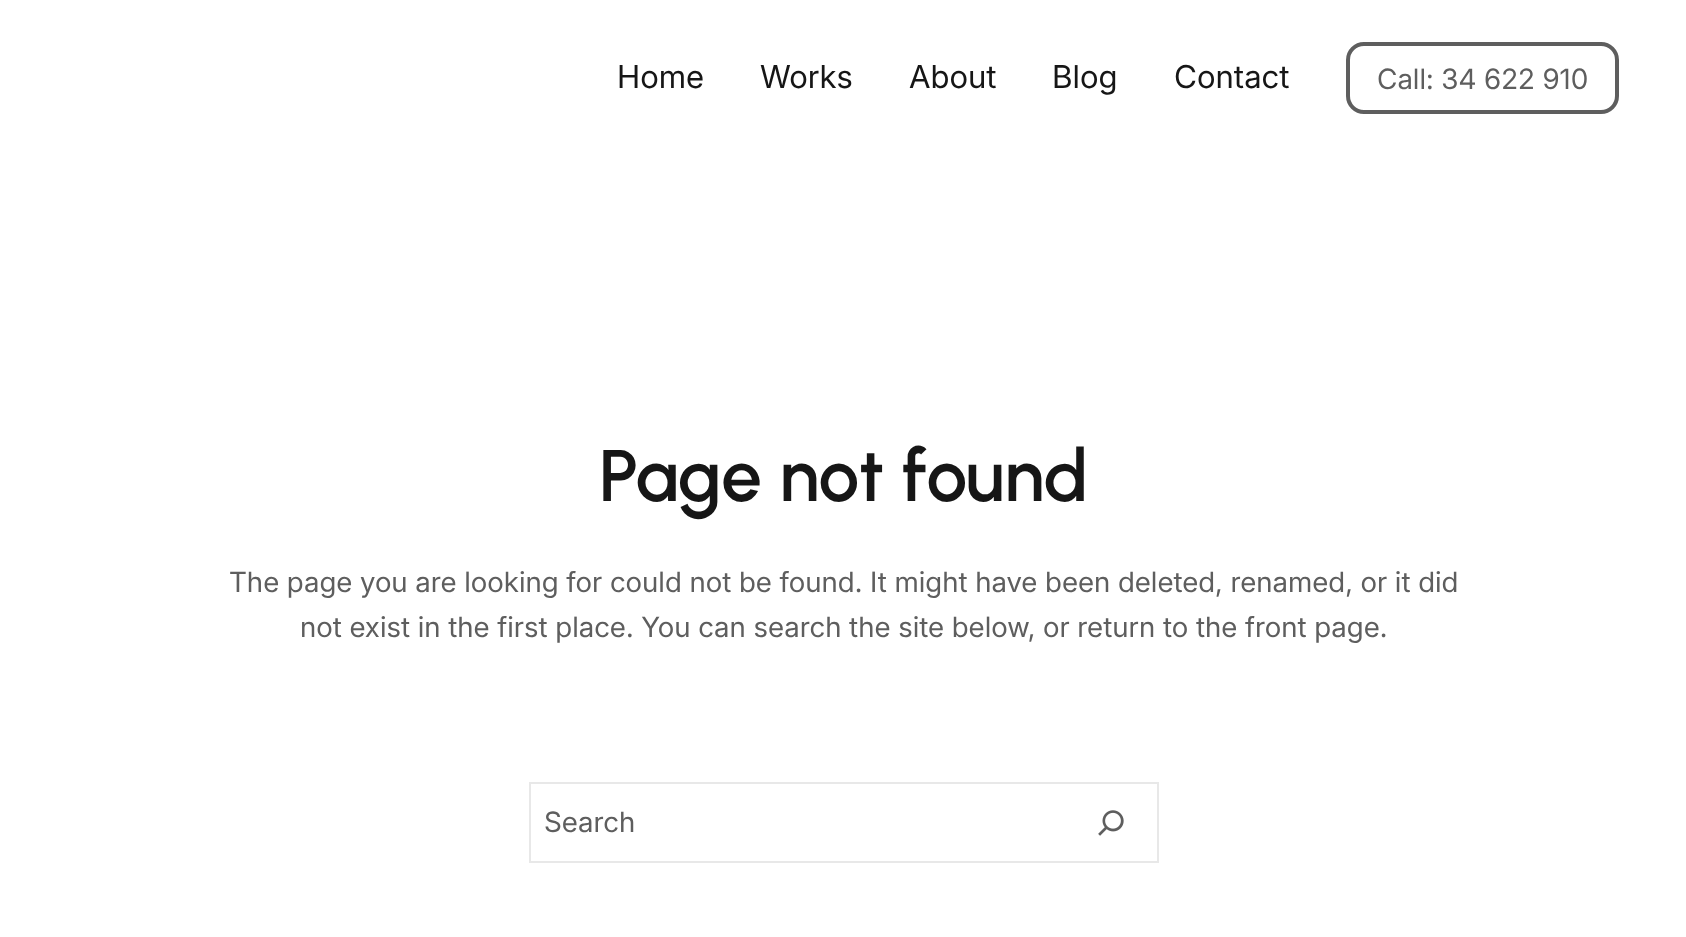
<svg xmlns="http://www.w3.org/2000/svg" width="1686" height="937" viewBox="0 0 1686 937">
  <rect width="100%" height="100%" fill="#fff"/>
  <rect x="1348" y="44" width="269" height="68" rx="16" fill="none" stroke="#5e5e5e" stroke-width="4"/>
  <path d="M530 783h628v79H530z" fill="none" stroke="#e8e8e8" stroke-width="2"/>
  <image x="1098" y="810" width="26" height="26" href="img/1.png"/>
  <g font-family="Inter" font-size="31.5" fill="#161616">
    <text x="617" y="88">Home</text>
    <text x="760" y="88">Works</text>
    <text x="909" y="88">About</text>
    <text x="1052" y="88">Blog</text>
    <text x="1174" y="88">Contact</text>
  </g>
  <text x="1377" y="89" font-family="Inter" font-size="28" fill="#5e5e5e">Call: 34 622 910</text>
  <text x="599" y="501" font-family="Urbanist" font-size="72.75" font-weight="600" fill="#161616">Page not found</text>
  <g font-family="Inter" font-size="28" fill="#5e5e5e">
    <text x="229" y="592">The page you are looking for could not be found. It might have been deleted, renamed, or it did</text>
    <text x="300" y="637">not exist in the first place. You can search the site below, or return to the front page.</text>
    <text x="544" y="832">Search</text>
  </g>
</svg>
